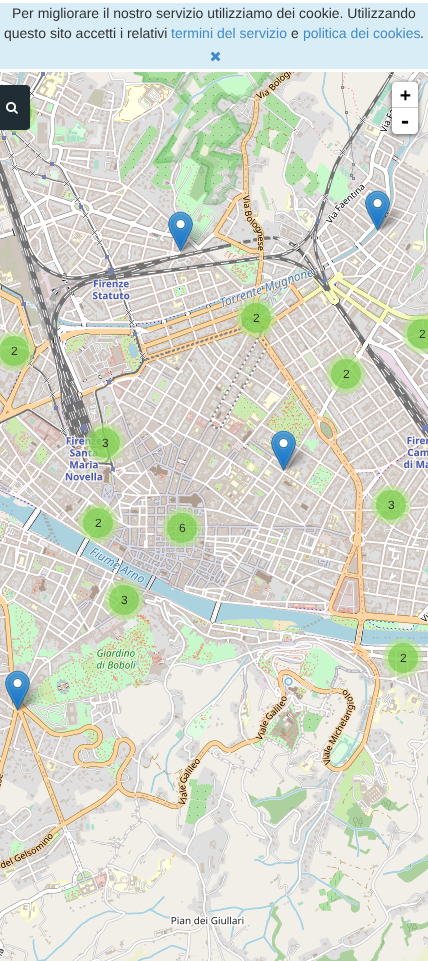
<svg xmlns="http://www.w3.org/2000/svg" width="428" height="961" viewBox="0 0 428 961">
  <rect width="100%" height="100%" fill="#fff"/>
  <path d="M0 3h428v66H0z" fill="#d9edf7"/>
  <image x="210" y="51" width="11" height="11" href="img/1.png"/>
  <image x="0" y="72" width="114" height="205" href="img/4.png"/>
  <circle cx="17" cy="113" r="20" fill="#b5e28c99"/>
  <circle cx="17" cy="113" r="15" fill="#6ecc3999"/>
  <image x="0" y="85" width="30" height="45" href="img/2.png"/>
  <image x="6" y="102" width="12" height="12" href="img/3.png"/>
  <image x="370" y="72" width="58" height="205" href="img/6.png"/>
  <rect x="392" y="83" width="26" height="52" rx="4" fill="#000000a6" filter="blur(2.5px)"/>
  <path d="M396 82H414C416 82 418 84 418 86V108H392V86C392 84 394 82 396 82Z" fill="#fff"/>
  <path d="M392 107h26v1H392z" fill="#ccc"/>
  <path d="M392 108H418V130C418 132 416 134 414 134H396C394 134 392 132 392 130Z" fill="#fff"/>
  <image x="114" y="72" width="256" height="205" href="img/5.png"/>
  <image x="0" y="277" width="114" height="256" href="img/7.png"/>
  <image x="114" y="277" width="256" height="256" href="img/8.png"/>
  <image x="370" y="277" width="58" height="256" href="img/9.png"/>
  <image x="0" y="533" width="114" height="256" href="img/10.png"/>
  <image x="114" y="533" width="256" height="256" href="img/11.png"/>
  <image x="370" y="533" width="58" height="256" href="img/12.png"/>
  <image x="0" y="789" width="114" height="172" href="img/13.png"/>
  <image x="114" y="789" width="256" height="172" href="img/14.png"/>
  <image x="370" y="789" width="58" height="172" href="img/15.png"/>
  <image x="375" y="203" width="29" height="28" href="img/16.png"/>
  <image x="178" y="224" width="29" height="28" href="img/17.png"/>
  <image x="281" y="443" width="29" height="28" href="img/18.png"/>
  <image x="15" y="683" width="29" height="28" href="img/19.png"/>
  <image x="168" y="211" width="25" height="41" href="img/20.png"/>
  <image x="365" y="190" width="25" height="41" href="img/21.png"/>
  <circle cx="256" cy="318" r="20" fill="#b5e28c99"/>
  <circle cx="256" cy="318" r="15" fill="#6ecc3999"/>
  <circle cx="422" cy="334" r="20" fill="#b5e28c99"/>
  <circle cx="422" cy="334" r="15" fill="#6ecc3999"/>
  <circle cx="14" cy="351" r="20" fill="#b5e28c99"/>
  <circle cx="14" cy="351" r="15" fill="#6ecc3999"/>
  <circle cx="346" cy="374" r="20" fill="#b5e28c99"/>
  <circle cx="346" cy="374" r="15" fill="#6ecc3999"/>
  <circle cx="105" cy="443" r="20" fill="#b5e28c99"/>
  <circle cx="105" cy="443" r="15" fill="#6ecc3999"/>
  <image x="271" y="430" width="25" height="41" href="img/22.png"/>
  <circle cx="391" cy="505" r="20" fill="#b5e28c99"/>
  <circle cx="391" cy="505" r="15" fill="#6ecc3999"/>
  <circle cx="98" cy="523" r="20" fill="#b5e28c99"/>
  <circle cx="98" cy="523" r="15" fill="#6ecc3999"/>
  <circle cx="182" cy="528" r="20" fill="#b5e28c99"/>
  <circle cx="182" cy="528" r="15" fill="#6ecc3999"/>
  <circle cx="124" cy="600" r="20" fill="#b5e28c99"/>
  <circle cx="124" cy="600" r="15" fill="#6ecc3999"/>
  <circle cx="403" cy="658" r="20" fill="#b5e28c99"/>
  <circle cx="403" cy="658" r="15" fill="#6ecc3999"/>
  <image x="5" y="670" width="25" height="41" href="img/23.png"/>
  <g font-family="Liberation Sans" font-size="14" fill="#333">
    <text x="12" y="18">Per migliorare il nostro servizio utilizziamo dei cookie. Utilizzando</text>
    <text x="4" y="38">questo sito accetti i relativi</text>
  </g>
  <text x="171" y="38" font-family="Liberation Sans" font-size="14" fill="#428bca">termini del servizio</text>
  <text x="291" y="38" font-family="Liberation Sans" font-size="14" fill="#333">e</text>
  <text x="303" y="38" font-family="Liberation Sans" font-size="14" fill="#428bca">politica dei cookies</text>
  <text x="420" y="38" font-family="Liberation Sans" font-size="14" fill="#333">.</text>
  <text x="400" y="101" font-family="DejaVu Sans Mono" font-size="18" font-weight="bold" fill="#000">+</text>
  <text x="399" y="128" font-family="DejaVu Sans Mono" font-size="20" font-weight="bold" fill="#000">-</text>
  <g font-family="Liberation Sans" font-size="12" fill="#333">
    <text x="253" y="322">2</text>
    <text x="419" y="338">2</text>
    <text x="11" y="355">2</text>
    <text x="343" y="378">2</text>
    <text x="102" y="447">3</text>
    <text x="388" y="509">3</text>
    <text x="95" y="527">2</text>
    <text x="179" y="532">6</text>
    <text x="121" y="604">3</text>
    <text x="400" y="662">2</text>
  </g>
</svg>
